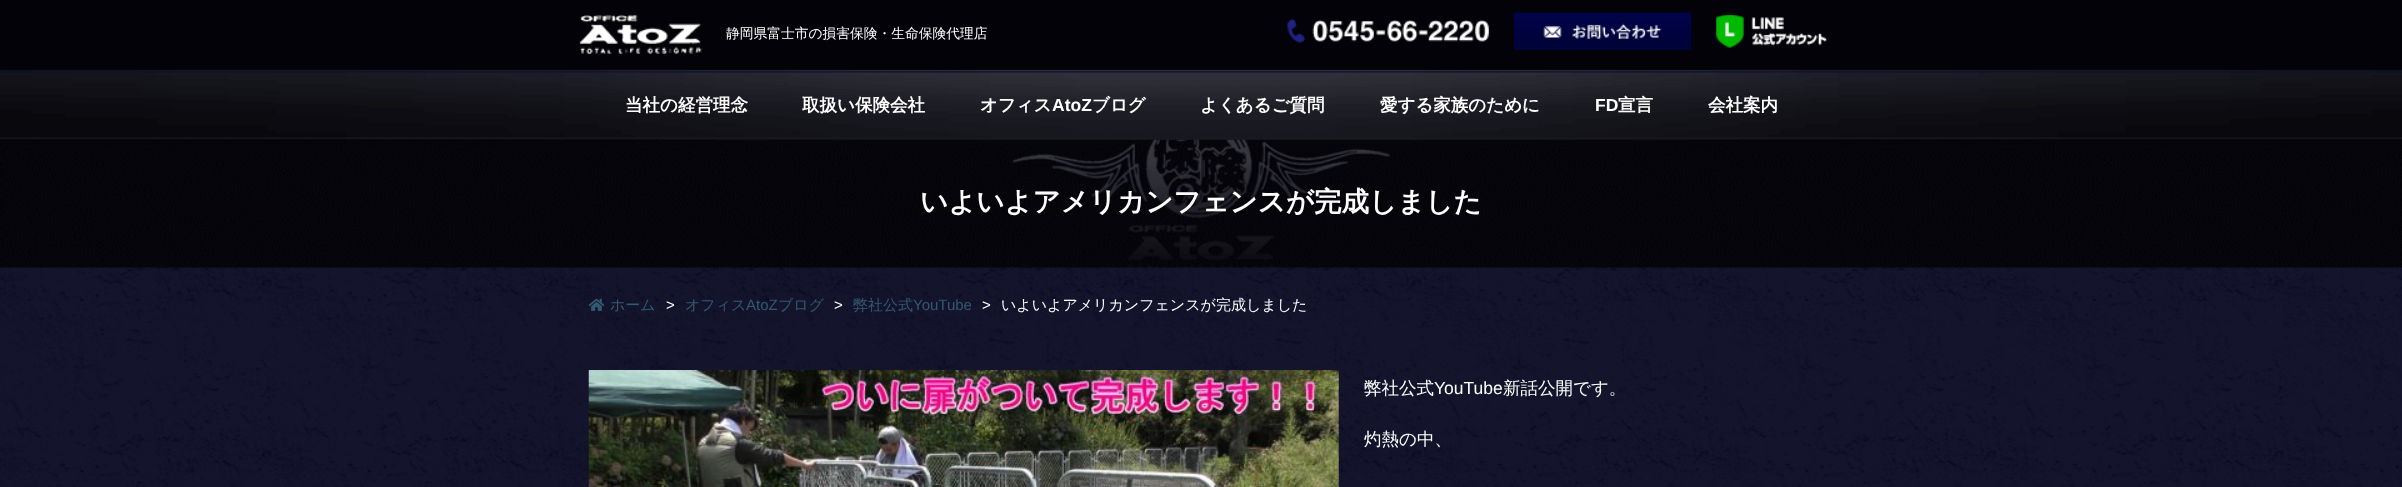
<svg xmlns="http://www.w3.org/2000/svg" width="2402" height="487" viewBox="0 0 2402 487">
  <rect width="100%" height="100%" fill="#fff"/>
  <image x="0" y="267" width="2402" height="220" href="img/1.png"/>
  <image x="0" y="0" width="2402" height="268" href="img/2.png"/>
  <image x="579" y="14" width="123" height="40" href="img/3.png"/>
  <image x="1287" y="18" width="202" height="25" href="img/4.png"/>
  <image x="1513" y="12" width="179" height="38" href="img/5.png"/>
  <image x="1716" y="14" width="111" height="34" href="img/6.png"/>
  <image x="588" y="298" width="16" height="13" href="img/7.png"/>
  <image x="588" y="370" width="751" height="117" href="img/8.png"/>
  <text x="726" y="38" font-family="WenQuanYi Zen Hei" font-size="13.75" font-weight="500" fill="#fff">静岡県富士市の損害保険・生命保険代理店</text>
  <g font-family="WenQuanYi Zen Hei" font-size="17.5" font-weight="bold" fill="#fff">
    <text x="625" y="111">当社の経営理念</text>
    <text x="802" y="111">取扱い保険会社</text>
    <text x="980" y="111">オフィス</text>
  </g>
  <text x="1052" y="111" font-family="Liberation Sans" font-size="17.5" font-weight="bold" fill="#fff">AtoZ</text>
  <g font-family="WenQuanYi Zen Hei" font-size="17.5" font-weight="bold" fill="#fff">
    <text x="1092" y="111">ブログ</text>
    <text x="1200" y="111">よくあるご質問</text>
    <text x="1380" y="111">愛する家族のために</text>
  </g>
  <text x="1595" y="111" font-family="Liberation Sans" font-size="17.5" font-weight="bold" fill="#fff">FD</text>
  <g font-family="WenQuanYi Zen Hei" font-size="17.5" font-weight="bold" fill="#fff">
    <text x="1618" y="111">宣言</text>
    <text x="1708" y="111">会社案内</text>
  </g>
  <text x="920" y="211" font-family="WenQuanYi Zen Hei" font-size="27.5" font-weight="bold" fill="#fff">いよいよアメリカンフェンスが完成しました</text>
  <text x="610" y="310" font-family="WenQuanYi Zen Hei" font-size="15" font-weight="500" fill="#325972">ホーム</text>
  <text x="666" y="310" font-family="Liberation Sans" font-size="15" fill="#fff">&gt;</text>
  <text x="685" y="310" font-family="WenQuanYi Zen Hei" font-size="15" font-weight="500" fill="#325972">オフィス</text>
  <text x="746" y="310" font-family="Liberation Sans" font-size="15" fill="#325972">AtoZ</text>
  <text x="778" y="310" font-family="WenQuanYi Zen Hei" font-size="15" font-weight="500" fill="#325972">ブログ</text>
  <text x="834" y="310" font-family="Liberation Sans" font-size="15" fill="#fff">&gt;</text>
  <text x="853" y="310" font-family="WenQuanYi Zen Hei" font-size="15" font-weight="500" fill="#325972">弊社公式</text>
  <text x="913" y="310" font-family="Liberation Sans" font-size="15" fill="#325972">YouTube</text>
  <text x="982" y="310" font-family="Liberation Sans" font-size="15" fill="#fff">&gt;</text>
  <text x="1001" y="310" font-family="WenQuanYi Zen Hei" font-size="15" font-weight="500" fill="#fff">いよいよアメリカンフェンスが完成しました</text>
  <text x="1364" y="394" font-family="WenQuanYi Zen Hei" font-size="17.5" font-weight="500" fill="#fff">弊社公式</text>
  <text x="1434" y="394" font-family="Liberation Sans" font-size="17.5" fill="#fff">YouTube</text>
  <g font-family="WenQuanYi Zen Hei" font-size="17.5" font-weight="500" fill="#fff">
    <text x="1503" y="394">新話公開です。</text>
    <text x="1364" y="445">灼熱の中、</text>
  </g>
</svg>
